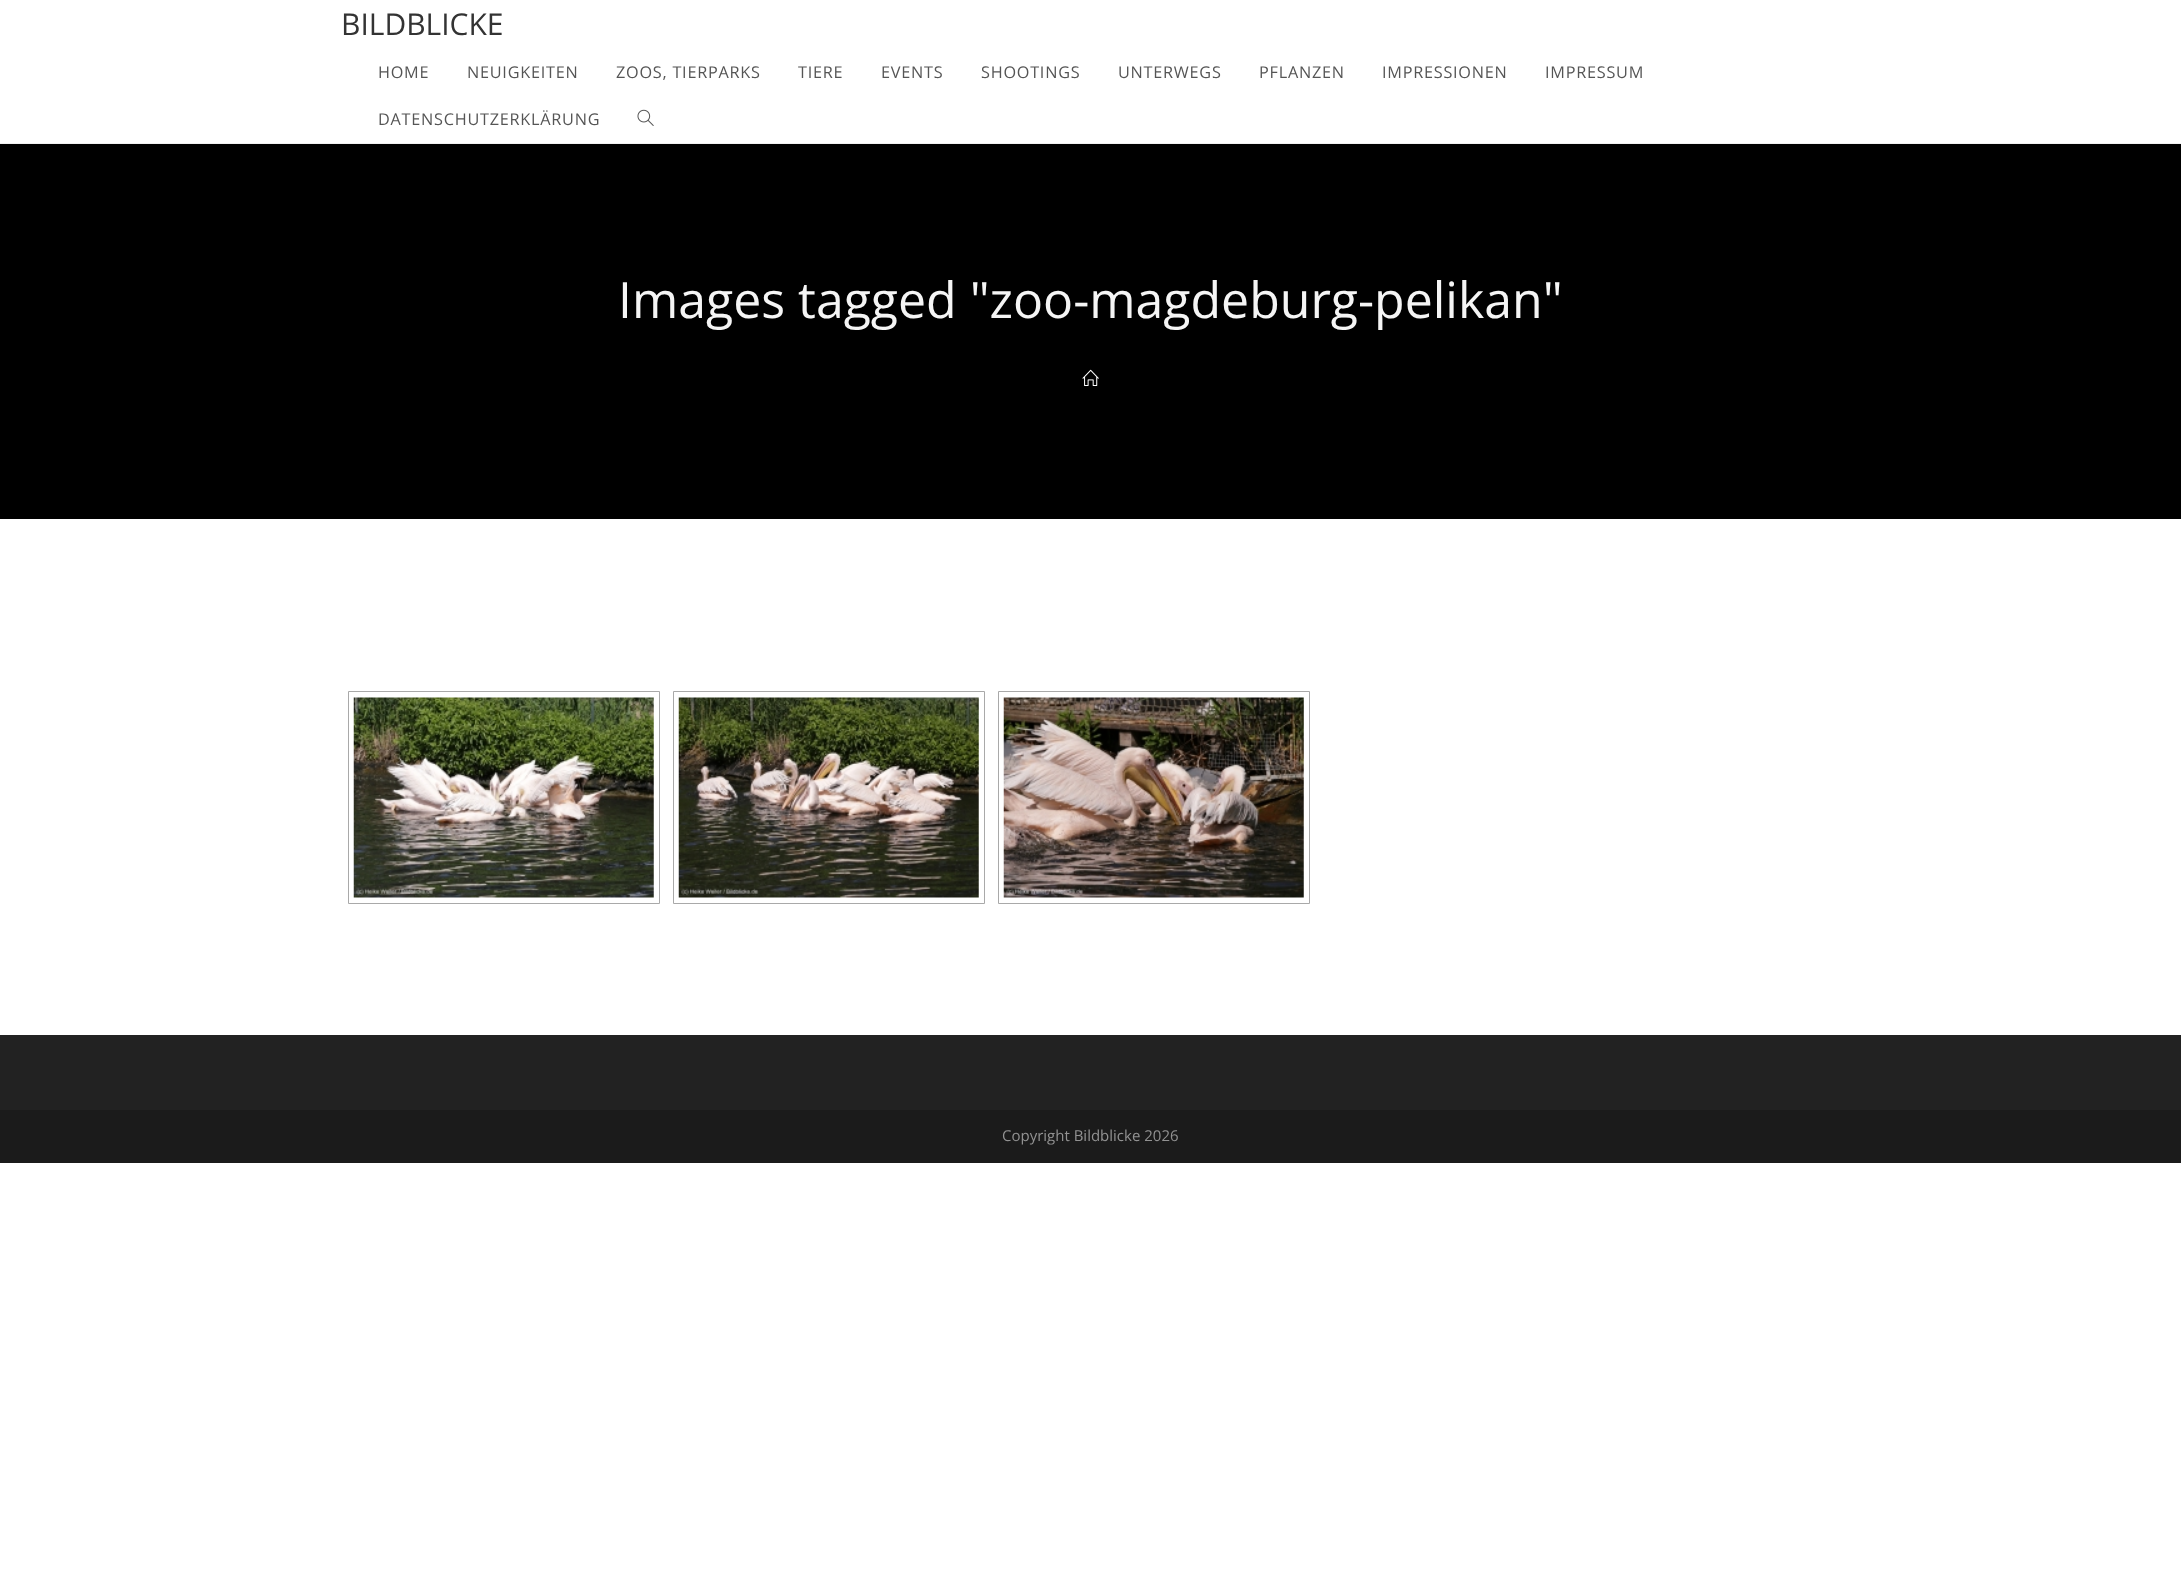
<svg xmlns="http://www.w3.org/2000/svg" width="2181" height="1574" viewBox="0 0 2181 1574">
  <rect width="100%" height="100%" fill="#fff"/>
  <path d="M0 143h2181v1H0z" fill="#f1f1f1"/>
  <image x="637" y="109" width="17" height="17" href="img/1.png"/>
  <path d="M0 144h2181v375H0z" fill="#000"/>
  <image x="1082" y="369" width="17" height="17" href="img/2.png"/>
  <path d="M348.5 691.5h311v212H348.5z" fill="none" stroke="#a9a9a9"/>
  <image x="353" y="697" width="301" height="201" href="img/3.png"/>
  <path d="M673.5 691.5h311v212H673.5z" fill="none" stroke="#a9a9a9"/>
  <image x="678" y="697" width="301" height="201" href="img/4.png"/>
  <path d="M998.5 691.5h311v212H998.5z" fill="none" stroke="#a9a9a9"/>
  <image x="1003" y="697" width="301" height="201" href="img/5.png"/>
  <path d="M0 1035h2181v75H0z" fill="#222"/>
  <path d="M0 1110h2181v53H0z" fill="#1b1b1b"/>
  <text x="341" y="35" font-family="Open Sans" font-size="30" fill="#333">BILDBLICKE</text>
  <g font-family="Open Sans" font-size="16.25" letter-spacing="0.75" fill="#555">
    <text x="378" y="78">HOME</text>
    <text x="467" y="78">NEUIGKEITEN</text>
    <text x="616" y="78">ZOOS, TIERPARKS</text>
    <text x="798" y="78">TIERE</text>
    <text x="881" y="78">EVENTS</text>
    <text x="981" y="78">SHOOTINGS</text>
    <text x="1118" y="78">UNTERWEGS</text>
    <text x="1259" y="78">PFLANZEN</text>
    <text x="1382" y="78">IMPRESSIONEN</text>
    <text x="1545" y="78">IMPRESSUM</text>
    <text x="378" y="125">DATENSCHUTZERKLÄRUNG</text>
  </g>
  <text x="618" y="318" font-family="Open Sans" font-size="50" fill="#f5f5f5">Images tagged "zoo-magdeburg-pelikan"</text>
  <text x="1002" y="1141" font-family="Open Sans" font-size="15" fill="#929292">Copyright Bildblicke 2026</text>
</svg>
